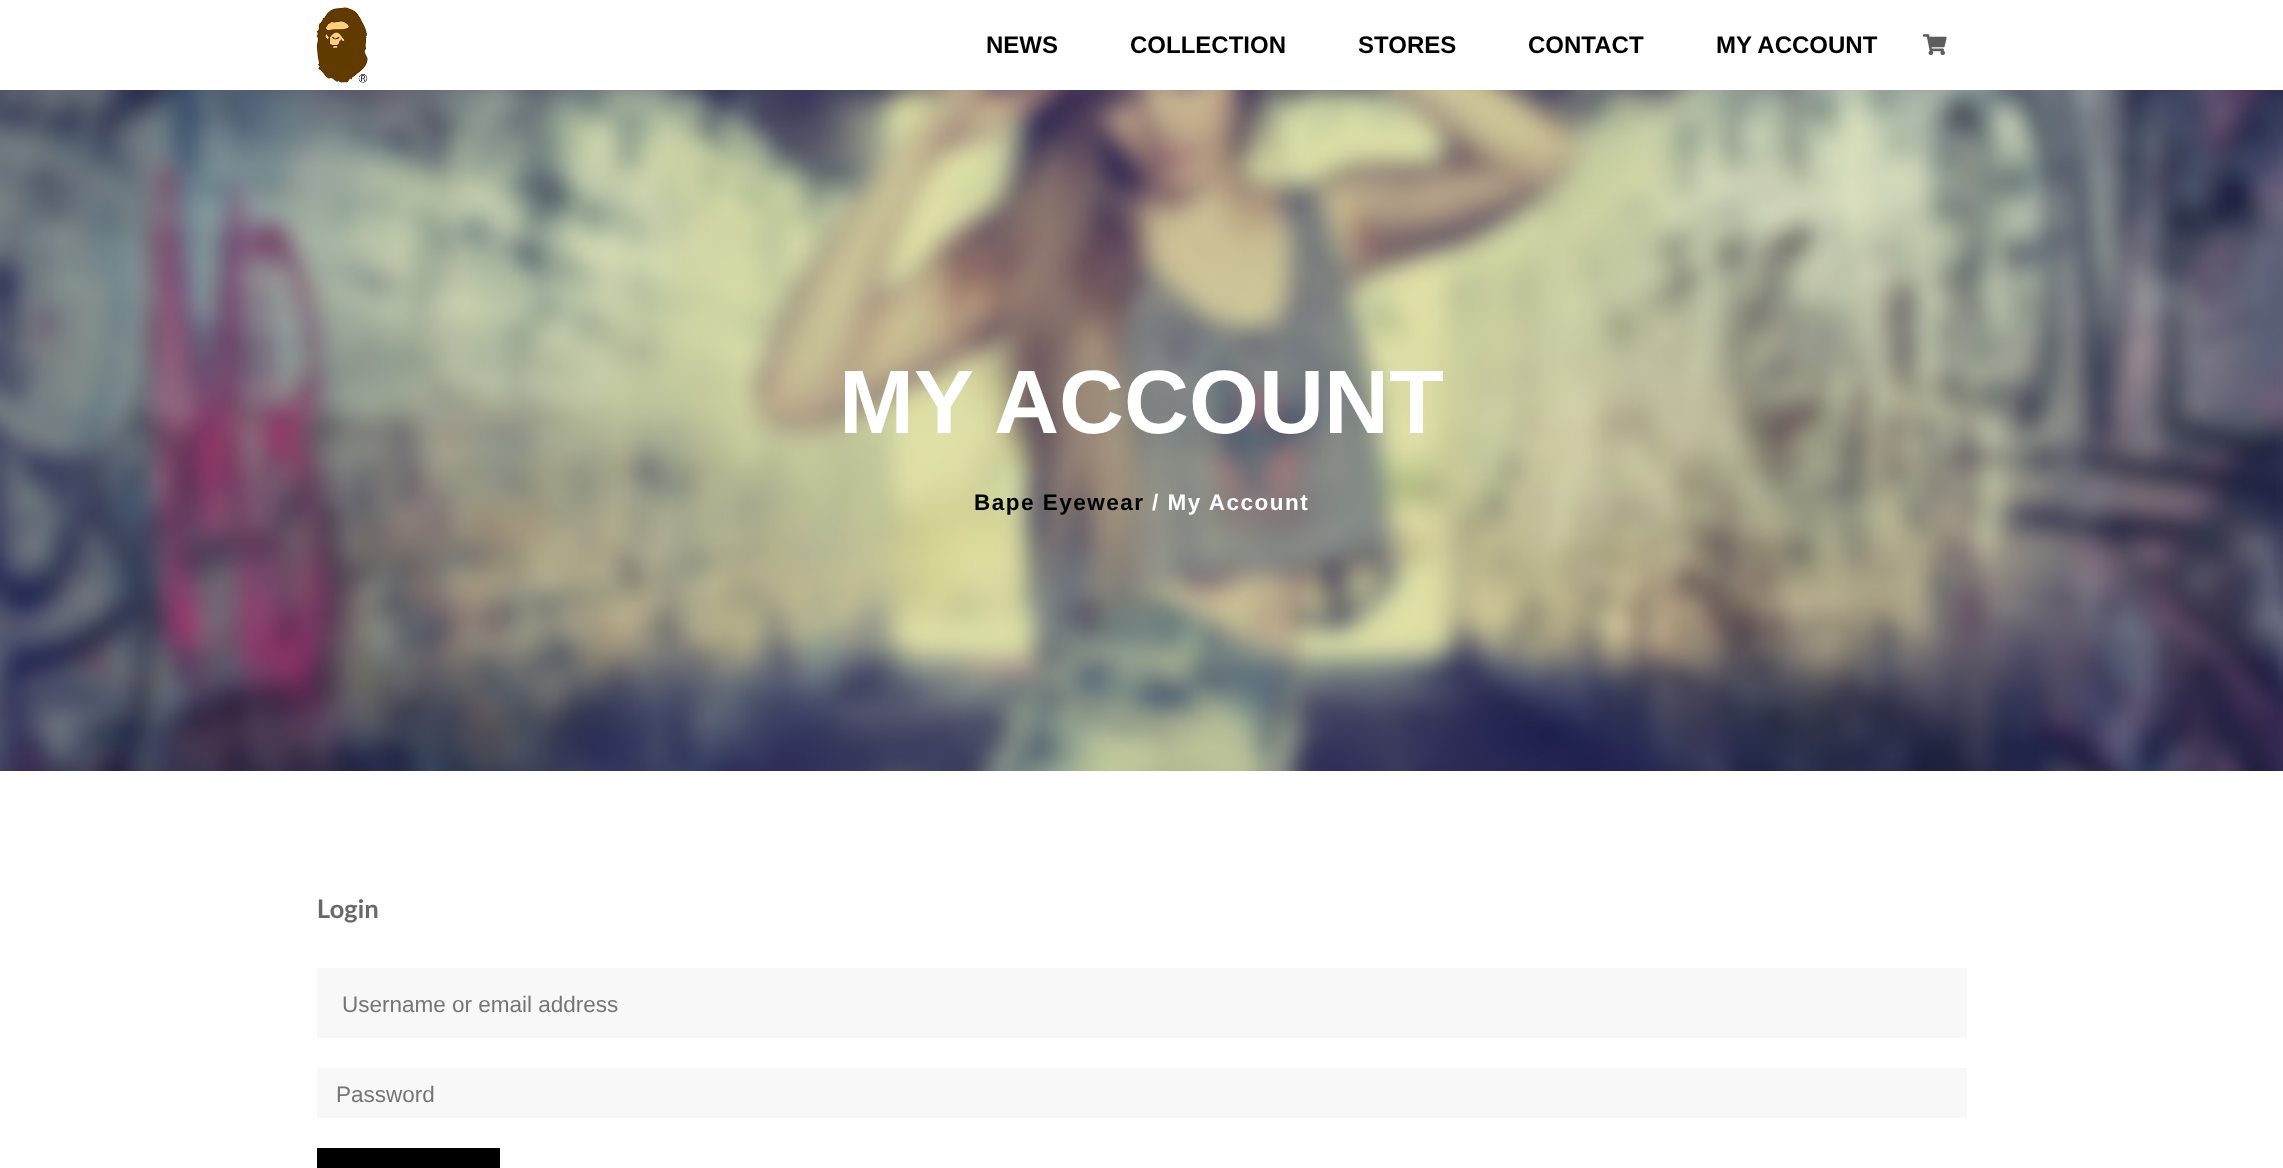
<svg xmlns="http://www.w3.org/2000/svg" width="2283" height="1168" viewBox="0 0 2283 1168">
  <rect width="100%" height="100%" fill="#fff"/>
  <image x="316" y="7" width="52" height="76" href="img/1.png"/>
  <image x="1923" y="34" width="24" height="22" href="img/2.png"/>
  <image x="0" y="90" width="2283" height="681" href="img/3.png"/>
  <path d="M317 968h1650v70H317z" fill="#f8f8f8"/>
  <path d="M317 1068h1650v50H317z" fill="#f8f8f8"/>
  <path d="M317 1148h183v20H317z" fill="#000"/>
  <g font-family="Liberation Sans" font-size="24" font-weight="bold" fill="#000">
    <text x="986" y="53">NEWS</text>
    <text x="1130" y="53">COLLECTION</text>
    <text x="1358" y="53">STORES</text>
    <text x="1528" y="53">CONTACT</text>
    <text x="1716" y="53">MY ACCOUNT</text>
  </g>
  <text x="839" y="433" font-family="Liberation Sans" font-size="90" font-weight="bold" fill="#fff">MY ACCOUNT</text>
  <text x="974" y="510" font-family="Liberation Sans" font-size="22.5" font-weight="bold" letter-spacing="1.5" fill="#000">Bape Eyewear</text>
  <text x="1152" y="510" font-family="Liberation Sans" font-size="22.5" font-weight="bold" letter-spacing="1.5" fill="#fff">/ My Account</text>
  <text x="317" y="918" font-family="Lato" font-size="25.5" font-weight="bold" fill="#696969">Login</text>
  <g font-family="Liberation Sans" font-size="22.5" fill="#757575">
    <text x="342" y="1012">Username or email address</text>
    <text x="336" y="1102">Password</text>
  </g>
</svg>
